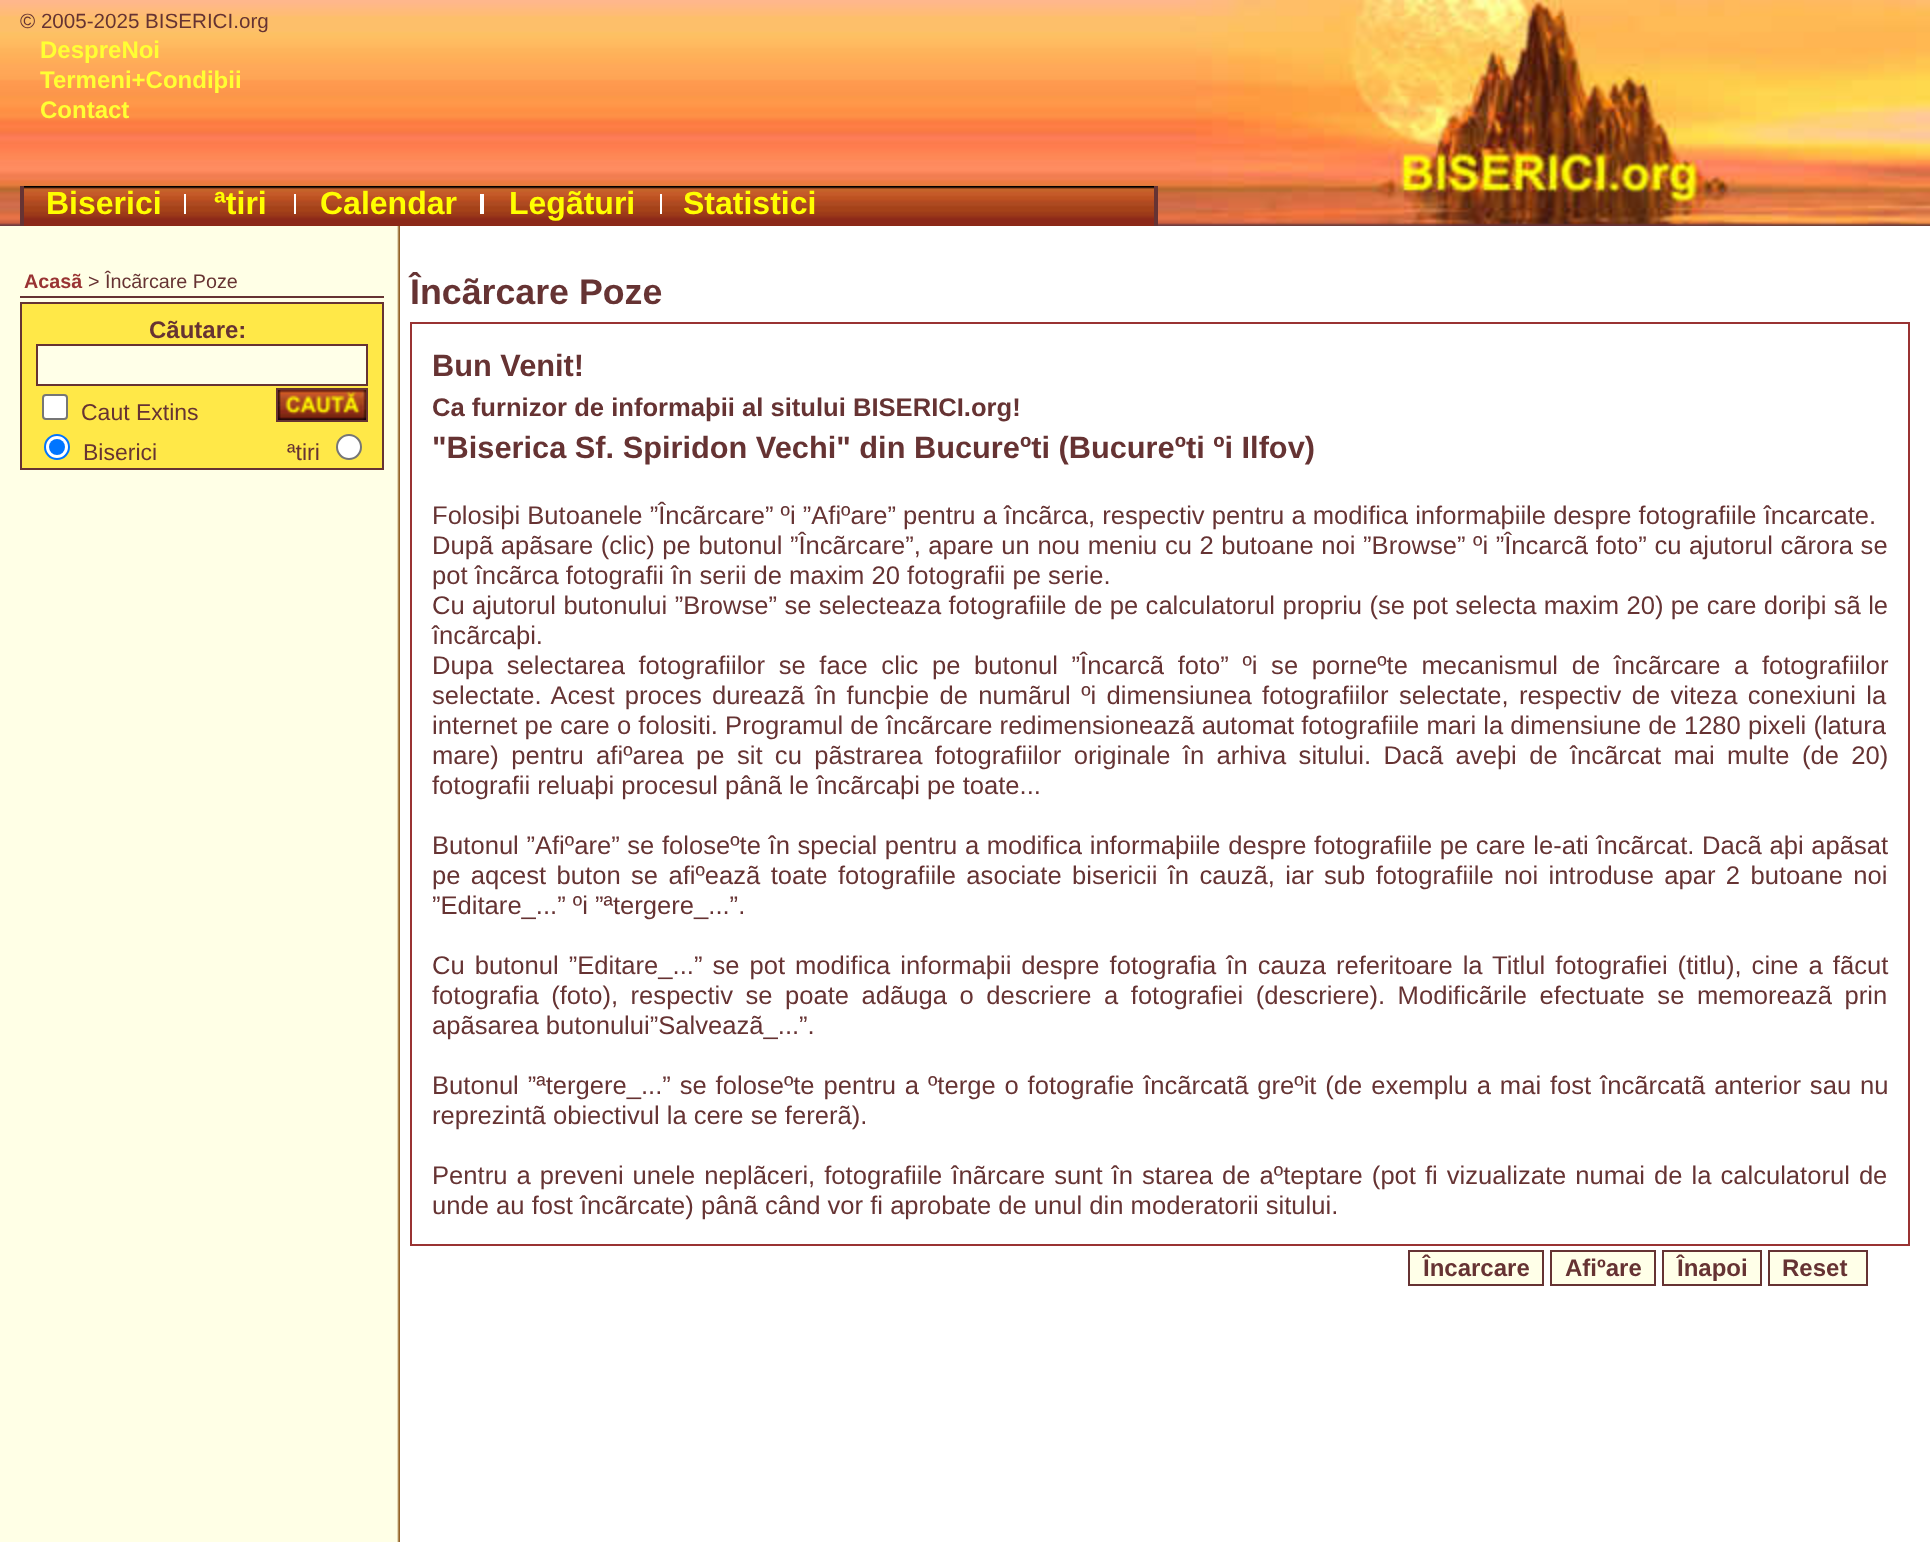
<svg xmlns="http://www.w3.org/2000/svg" width="1930" height="1542" viewBox="0 0 1930 1542">
  <rect width="100%" height="100%" fill="#fff"/>
  <image x="0" y="0" width="1180" height="226" href="img/1.png"/>
  <image x="1180" y="0" width="750" height="226" href="img/2.png"/>
  <image x="24" y="186" width="1130" height="40" href="img/3.png"/>
  <path d="M1154 186h4v40H1154z" fill="#633"/>
  <path d="M20 186h4v40H20z" fill="#633"/>
  <path d="M184 194h2v20H184z" fill="#fff"/>
  <path d="M294 194h2v20H294z" fill="#fff"/>
  <path d="M480 194h4v20H480z" fill="#fff"/>
  <path d="M660 194h2v20H660z" fill="#fff"/>
  <image x="0" y="226" width="400" height="1316" href="img/4.png"/>
  <path d="M20 296h364v2H20z" fill="#633"/>
  <path d="M21 303h362v166H21z" fill="#ffe848" stroke="#633" stroke-width="2"/>
  <path d="M37 345h330v40H37z" fill="#ffffe8" stroke="#633" stroke-width="2"/>
  <rect x="43" y="395" width="24" height="24" rx="3" fill="#fff" stroke="#767676" stroke-width="2"/>
  <path d="M277 389h90v32H277z" fill="none" stroke="#633" stroke-width="2"/>
  <image x="278" y="390" width="88" height="30" href="img/5.png"/>
  <circle cx="57" cy="447" r="12" fill="#fff" stroke="#0075ff" stroke-width="2"/>
  <circle cx="57" cy="447" r="8" fill="#0075ff"/>
  <circle cx="349" cy="447" r="12" fill="#fff" stroke="#767676" stroke-width="2"/>
  <path d="M411 323h1498v922H411z" fill="none" stroke="#933" stroke-width="2"/>
  <path d="M1409 1251h134v34H1409z" fill="#ffffe8" stroke="#633" stroke-width="2"/>
  <path d="M1551 1251h104v34H1551z" fill="#ffffe8" stroke="#633" stroke-width="2"/>
  <path d="M1663 1251h98v34H1663z" fill="#ffffe8" stroke="#633" stroke-width="2"/>
  <path d="M1769 1251h98v34H1769z" fill="#ffffe8" stroke="#633" stroke-width="2"/>
  <text x="20" y="28" font-family="Liberation Sans" font-size="20.6" fill="#633">© 2005-2025 BISERICI.org</text>
  <g font-family="Liberation Sans" font-size="24" font-weight="bold" fill="#ff3">
    <text x="40" y="58">DespreNoi</text>
    <text x="40" y="88">Termeni+Condiþii</text>
    <text x="40" y="118">Contact</text>
  </g>
  <g font-family="Liberation Sans" font-size="32" font-weight="bold" fill="#ff0">
    <text x="46" y="214">Biserici</text>
    <text x="214" y="214">ªtiri</text>
    <text x="320" y="214">Calendar</text>
    <text x="509" y="214">Legãturi</text>
    <text x="683" y="214">Statistici</text>
  </g>
  <text x="24" y="288" font-family="Liberation Sans" font-size="19.75" font-weight="bold" fill="#933">Acasã</text>
  <text x="88" y="288" font-family="Liberation Sans" font-size="19.75" fill="#633">&gt; Încãrcare Poze</text>
  <text x="149" y="338" font-family="Liberation Sans" font-size="24" font-weight="bold" fill="#633">Cãutare:</text>
  <g font-family="Liberation Sans" font-size="23" fill="#633">
    <text x="81" y="420">Caut Extins</text>
    <text x="83" y="460">Biserici</text>
    <text x="287" y="460">ªtiri</text>
  </g>
  <text x="410" y="304" font-family="Liberation Sans" font-size="35.75" font-weight="bold" fill="#633">Încãrcare Poze</text>
  <text x="432" y="376" font-family="Liberation Sans" font-size="30.75" font-weight="bold" fill="#633">Bun Venit!</text>
  <text x="432" y="416" font-family="Liberation Sans" font-size="25.6" font-weight="bold" fill="#633">Ca furnizor de informaþii al sitului BISERICI.org!</text>
  <text x="432" y="458" font-family="Liberation Sans" font-size="30.75" font-weight="bold" fill="#633">"Biserica Sf. Spiridon Vechi" din Bucureºti (Bucureºti ºi Ilfov)</text>
  <g font-family="Liberation Sans" font-size="25.6" fill="#633">
    <text x="432" y="524">Folosiþi Butoanele ”Încãrcare” ºi ”Afiºare” pentru a încãrca, respectiv pentru a modifica informaþiile despre fotografiile încarcate.</text>
    <text x="432" y="554" word-spacing="0.45">Dupã apãsare (clic) pe butonul ”Încãrcare”, apare un nou meniu cu 2 butoane noi ”Browse” ºi ”Încarcã foto” cu ajutorul cãrora se</text>
    <text x="432" y="584">pot încãrca fotografii în serii de maxim 20 fotografii pe serie.</text>
    <text x="432" y="614" word-spacing="0.25">Cu ajutorul butonului ”Browse” se selecteaza fotografiile de pe calculatorul propriu (se pot selecta maxim 20) pe care doriþi sã le</text>
    <text x="432" y="644">încãrcaþi.</text>
    <text x="432" y="674" word-spacing="6.5">Dupa selectarea fotografiilor se face clic pe butonul ”Încarcã foto” ºi se porneºte mecanismul de încãrcare a fotografiilor</text>
    <text x="432" y="704" word-spacing="3.25">selectate. Acest proces dureazã în funcþie de numãrul ºi dimensiunea fotografiilor selectate, respectiv de viteza conexiuni la</text>
    <text x="432" y="734">internet pe care o folositi. Programul de încãrcare redimensioneazã automat fotografiile mari la dimensiune de 1280 pixeli (latura</text>
    <text x="432" y="764" word-spacing="5.25">mare) pentru afiºarea pe sit cu pãstrarea fotografiilor originale în arhiva sitului. Dacã aveþi de încãrcat mai multe (de 20)</text>
    <text x="432" y="794">fotografii reluaþi procesul pânã le încãrcaþi pe toate...</text>
    <text x="432" y="854" word-spacing="0.5">Butonul ”Afiºare” se foloseºte în special pentru a modifica informaþiile despre fotografiile pe care le-ati încãrcat. Dacã aþi apãsat</text>
    <text x="432" y="884" word-spacing="3.25">pe aqcest buton se afiºeazã toate fotografiile asociate bisericii în cauzã, iar sub fotografiile noi introduse apar 2 butoane noi</text>
    <text x="432" y="914">”Editare_...” ºi ”ªtergere_...”.</text>
    <text x="432" y="974" word-spacing="2.9">Cu butonul ”Editare_...” se pot modifica informaþii despre fotografia în cauza referitoare la Titlul fotografiei (titlu), cine a fãcut</text>
    <text x="432" y="1004" word-spacing="5.4">fotografia (foto), respectiv se poate adãuga o descriere a fotografiei (descriere). Modificãrile efectuate se memoreazã prin</text>
    <text x="432" y="1034">apãsarea butonului”Salveazã_...”.</text>
    <text x="432" y="1094" word-spacing="1.75">Butonul ”ªtergere_...” se foloseºte pentru a ºterge o fotografie încãrcatã greºit (de exemplu a mai fost încãrcatã anterior sau nu</text>
    <text x="432" y="1124">reprezintã obiectivul la cere se fererã).</text>
    <text x="432" y="1184" word-spacing="1.9">Pentru a preveni unele neplãceri, fotografiile înãrcare sunt în starea de aºteptare (pot fi vizualizate numai de la calculatorul de</text>
    <text x="432" y="1214">unde au fost încãrcate) pânã când vor fi aprobate de unul din moderatorii sitului.</text>
  </g>
  <g font-family="Liberation Sans" font-size="24" font-weight="bold" fill="#633">
    <text x="1423" y="1276">Încarcare</text>
    <text x="1565" y="1276">Afiºare</text>
    <text x="1677" y="1276">Înapoi</text>
    <text x="1782" y="1276">Reset</text>
  </g>
</svg>
